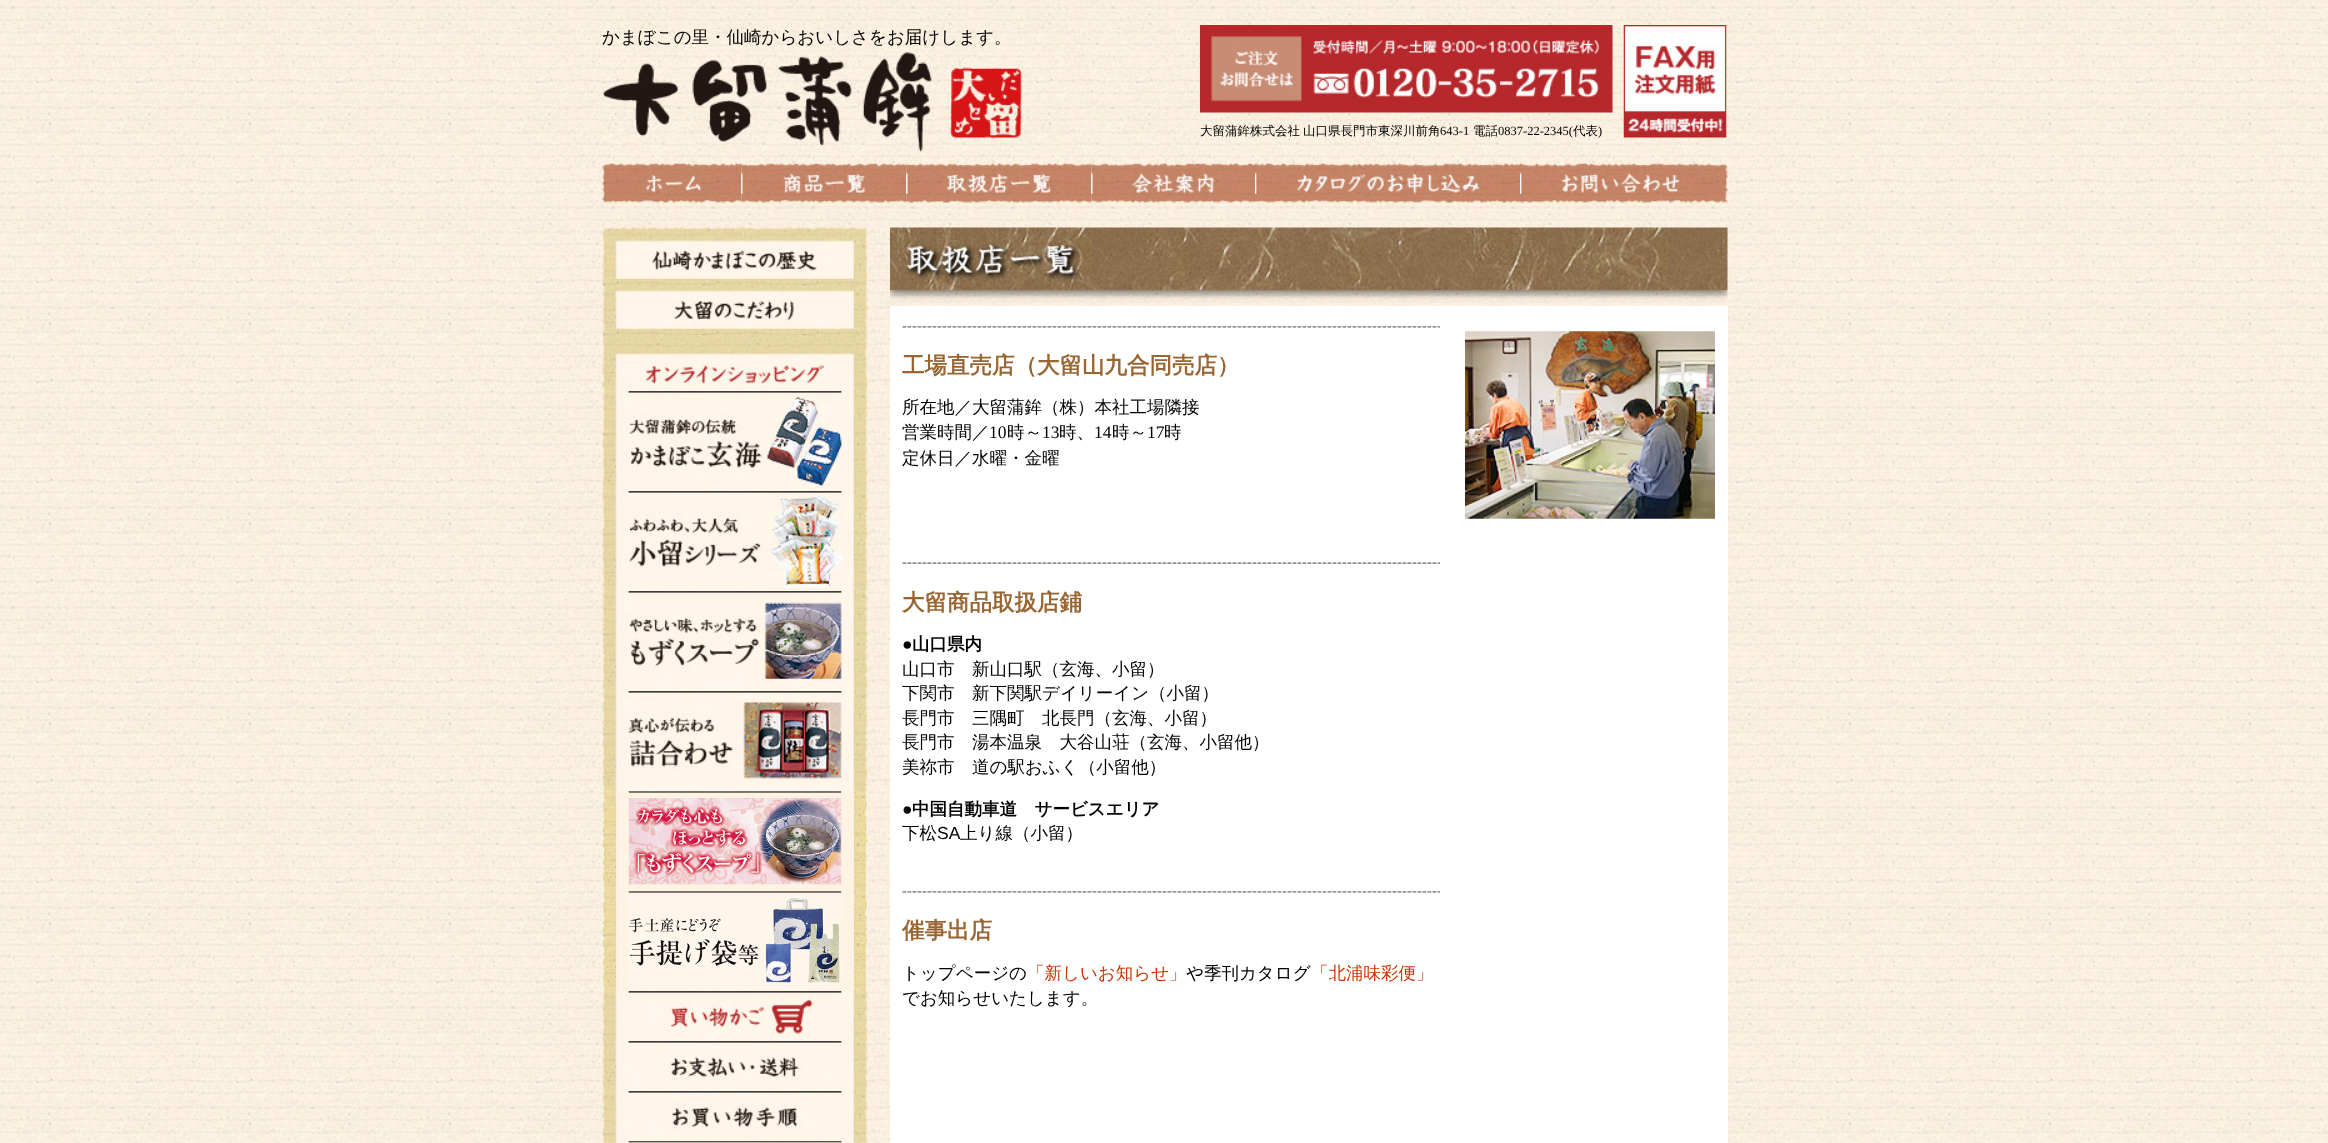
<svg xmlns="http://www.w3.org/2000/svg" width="2328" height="1143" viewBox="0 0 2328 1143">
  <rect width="100%" height="100%" fill="#fff"/>
  <image x="0" y="0" width="2328" height="1143" href="img/1.png"/>
  <image x="1200" y="25" width="413" height="88" href="img/2.png"/>
  <image x="1623" y="25" width="104" height="113" href="img/3.png"/>
  <image x="602" y="51" width="420" height="101" href="img/4.png"/>
  <image x="602" y="163" width="140" height="40" href="img/5.png"/>
  <image x="741" y="163" width="166" height="40" href="img/6.png"/>
  <image x="906" y="163" width="186" height="40" href="img/7.png"/>
  <image x="1091" y="163" width="164" height="40" href="img/8.png"/>
  <image x="1255" y="163" width="265" height="40" href="img/9.png"/>
  <image x="1520" y="163" width="208" height="40" href="img/10.png"/>
  <image x="602" y="227" width="266" height="52" href="img/11.png"/>
  <image x="602" y="278" width="266" height="51" href="img/12.png"/>
  <image x="602" y="328" width="266" height="64" href="img/13.png"/>
  <image x="602" y="391" width="266" height="101" href="img/14.png"/>
  <image x="602" y="491" width="266" height="101" href="img/15.png"/>
  <image x="602" y="591" width="266" height="101" href="img/16.png"/>
  <image x="602" y="691" width="266" height="101" href="img/17.png"/>
  <image x="602" y="791" width="266" height="101" href="img/18.png"/>
  <image x="602" y="891" width="266" height="101" href="img/19.png"/>
  <image x="602" y="991" width="266" height="51" href="img/20.png"/>
  <image x="602" y="1041" width="266" height="51" href="img/21.png"/>
  <image x="602" y="1091" width="266" height="52" href="img/22.png"/>
  <image x="602" y="1142" width="266" height="1" href="img/23.png"/>
  <image x="890" y="227" width="838" height="76" href="img/24.png"/>
  <path d="M890 306h838v837H890z" fill="#fff"/>
  <image x="902" y="326" width="538" height="2" href="img/25.png"/>
  <image x="1465" y="331" width="250" height="188" href="img/26.png"/>
  <image x="902" y="562" width="538" height="2" href="img/27.png"/>
  <image x="902" y="891" width="538" height="2" href="img/25.png"/>
  <text x="602" y="43" font-family="WenQuanYi Zen Hei" font-size="17.5" font-weight="500" fill="#000">かまぼこの里・仙崎からおいしさをお届けします。</text>
  <g font-family="WenQuanYi Zen Hei" font-size="12.5" font-weight="500" fill="#000">
    <text x="1200" y="135">大留蒲鉾株式会社</text>
    <text x="1303" y="135">山口県長門市東深川前角</text>
  </g>
  <text x="1440" y="135" font-family="Liberation Serif" font-size="12.5" fill="#000">643-1</text>
  <text x="1473" y="135" font-family="WenQuanYi Zen Hei" font-size="12.5" font-weight="500" fill="#000">電話</text>
  <text x="1498" y="135" font-family="Liberation Serif" font-size="12.5" fill="#000">0837-22-2345(</text>
  <text x="1573" y="135" font-family="WenQuanYi Zen Hei" font-size="12.5" font-weight="500" fill="#000">代表</text>
  <text x="1598" y="135" font-family="Liberation Serif" font-size="12.5" fill="#000">)</text>
  <text x="902" y="373" font-family="WenQuanYi Zen Hei" font-size="22.5" font-weight="bold" fill="#963">工場直売店（大留山九合同売店）</text>
  <g font-family="WenQuanYi Zen Hei" font-size="17.5" font-weight="500" fill="#000">
    <text x="902" y="413">所在地／大留蒲鉾（株）本社工場隣接</text>
    <text x="902" y="438">営業時間／</text>
  </g>
  <text x="989" y="438" font-family="Liberation Serif" font-size="17.5" fill="#000">10</text>
  <text x="1007" y="438" font-family="WenQuanYi Zen Hei" font-size="17.5" font-weight="500" fill="#000">時～</text>
  <text x="1042" y="438" font-family="Liberation Serif" font-size="17.5" fill="#000">13</text>
  <text x="1059" y="438" font-family="WenQuanYi Zen Hei" font-size="17.5" font-weight="500" fill="#000">時、</text>
  <text x="1094" y="438" font-family="Liberation Serif" font-size="17.5" fill="#000">14</text>
  <text x="1112" y="438" font-family="WenQuanYi Zen Hei" font-size="17.5" font-weight="500" fill="#000">時～</text>
  <text x="1147" y="438" font-family="Liberation Serif" font-size="17.5" fill="#000">17</text>
  <g font-family="WenQuanYi Zen Hei" font-size="17.5" font-weight="500" fill="#000">
    <text x="1164" y="438">時</text>
    <text x="902" y="464">定休日／水曜・金曜</text>
  </g>
  <text x="902" y="610" font-family="WenQuanYi Zen Hei" font-size="22.5" font-weight="bold" fill="#963">大留商品取扱店鋪</text>
  <text x="902" y="650" font-family="Liberation Sans" font-size="17.5" font-weight="bold" fill="#000">●</text>
  <text x="912" y="650" font-family="WenQuanYi Zen Hei" font-size="17.5" font-weight="bold" fill="#000">山口県内</text>
  <g font-family="WenQuanYi Zen Hei" font-size="17.5" font-weight="500" fill="#000">
    <text x="902" y="675">山口市　新山口駅（玄海、小留）</text>
    <text x="902" y="699">下関市　新下関駅デイリーイン（小留）</text>
    <text x="902" y="724">長門市　三隅町　北長門（玄海、小留）</text>
    <text x="902" y="748">長門市　湯本温泉　大谷山荘（玄海、小留他）</text>
    <text x="902" y="773">美祢市　道の駅おふく（小留他）</text>
  </g>
  <text x="902" y="815" font-family="Liberation Sans" font-size="17.5" font-weight="bold" fill="#000">●</text>
  <text x="912" y="815" font-family="WenQuanYi Zen Hei" font-size="17.5" font-weight="bold" fill="#000">中国自動車道　サービスエリア</text>
  <text x="902" y="839" font-family="WenQuanYi Zen Hei" font-size="17.5" font-weight="500" fill="#000">下松</text>
  <text x="937" y="839" font-family="Liberation Sans" font-size="17.5" fill="#000">SA</text>
  <text x="960" y="839" font-family="WenQuanYi Zen Hei" font-size="17.5" font-weight="500" fill="#000">上り線（小留）</text>
  <text x="902" y="938" font-family="WenQuanYi Zen Hei" font-size="22.5" font-weight="bold" fill="#963">催事出店</text>
  <text x="902" y="979" font-family="WenQuanYi Zen Hei" font-size="17.5" font-weight="500" fill="#000">トップページの</text>
  <text x="1027" y="979" font-family="WenQuanYi Zen Hei" font-size="17.5" font-weight="500" fill="#c30">「新しいお知らせ」</text>
  <text x="1186" y="979" font-family="WenQuanYi Zen Hei" font-size="17.5" font-weight="500" fill="#000">や季刊カタログ</text>
  <text x="1311" y="979" font-family="WenQuanYi Zen Hei" font-size="17.5" font-weight="500" fill="#c30">「北浦味彩便」</text>
  <text x="902" y="1004" font-family="WenQuanYi Zen Hei" font-size="17.5" font-weight="500" fill="#000">でお知らせいたします。</text>
</svg>
